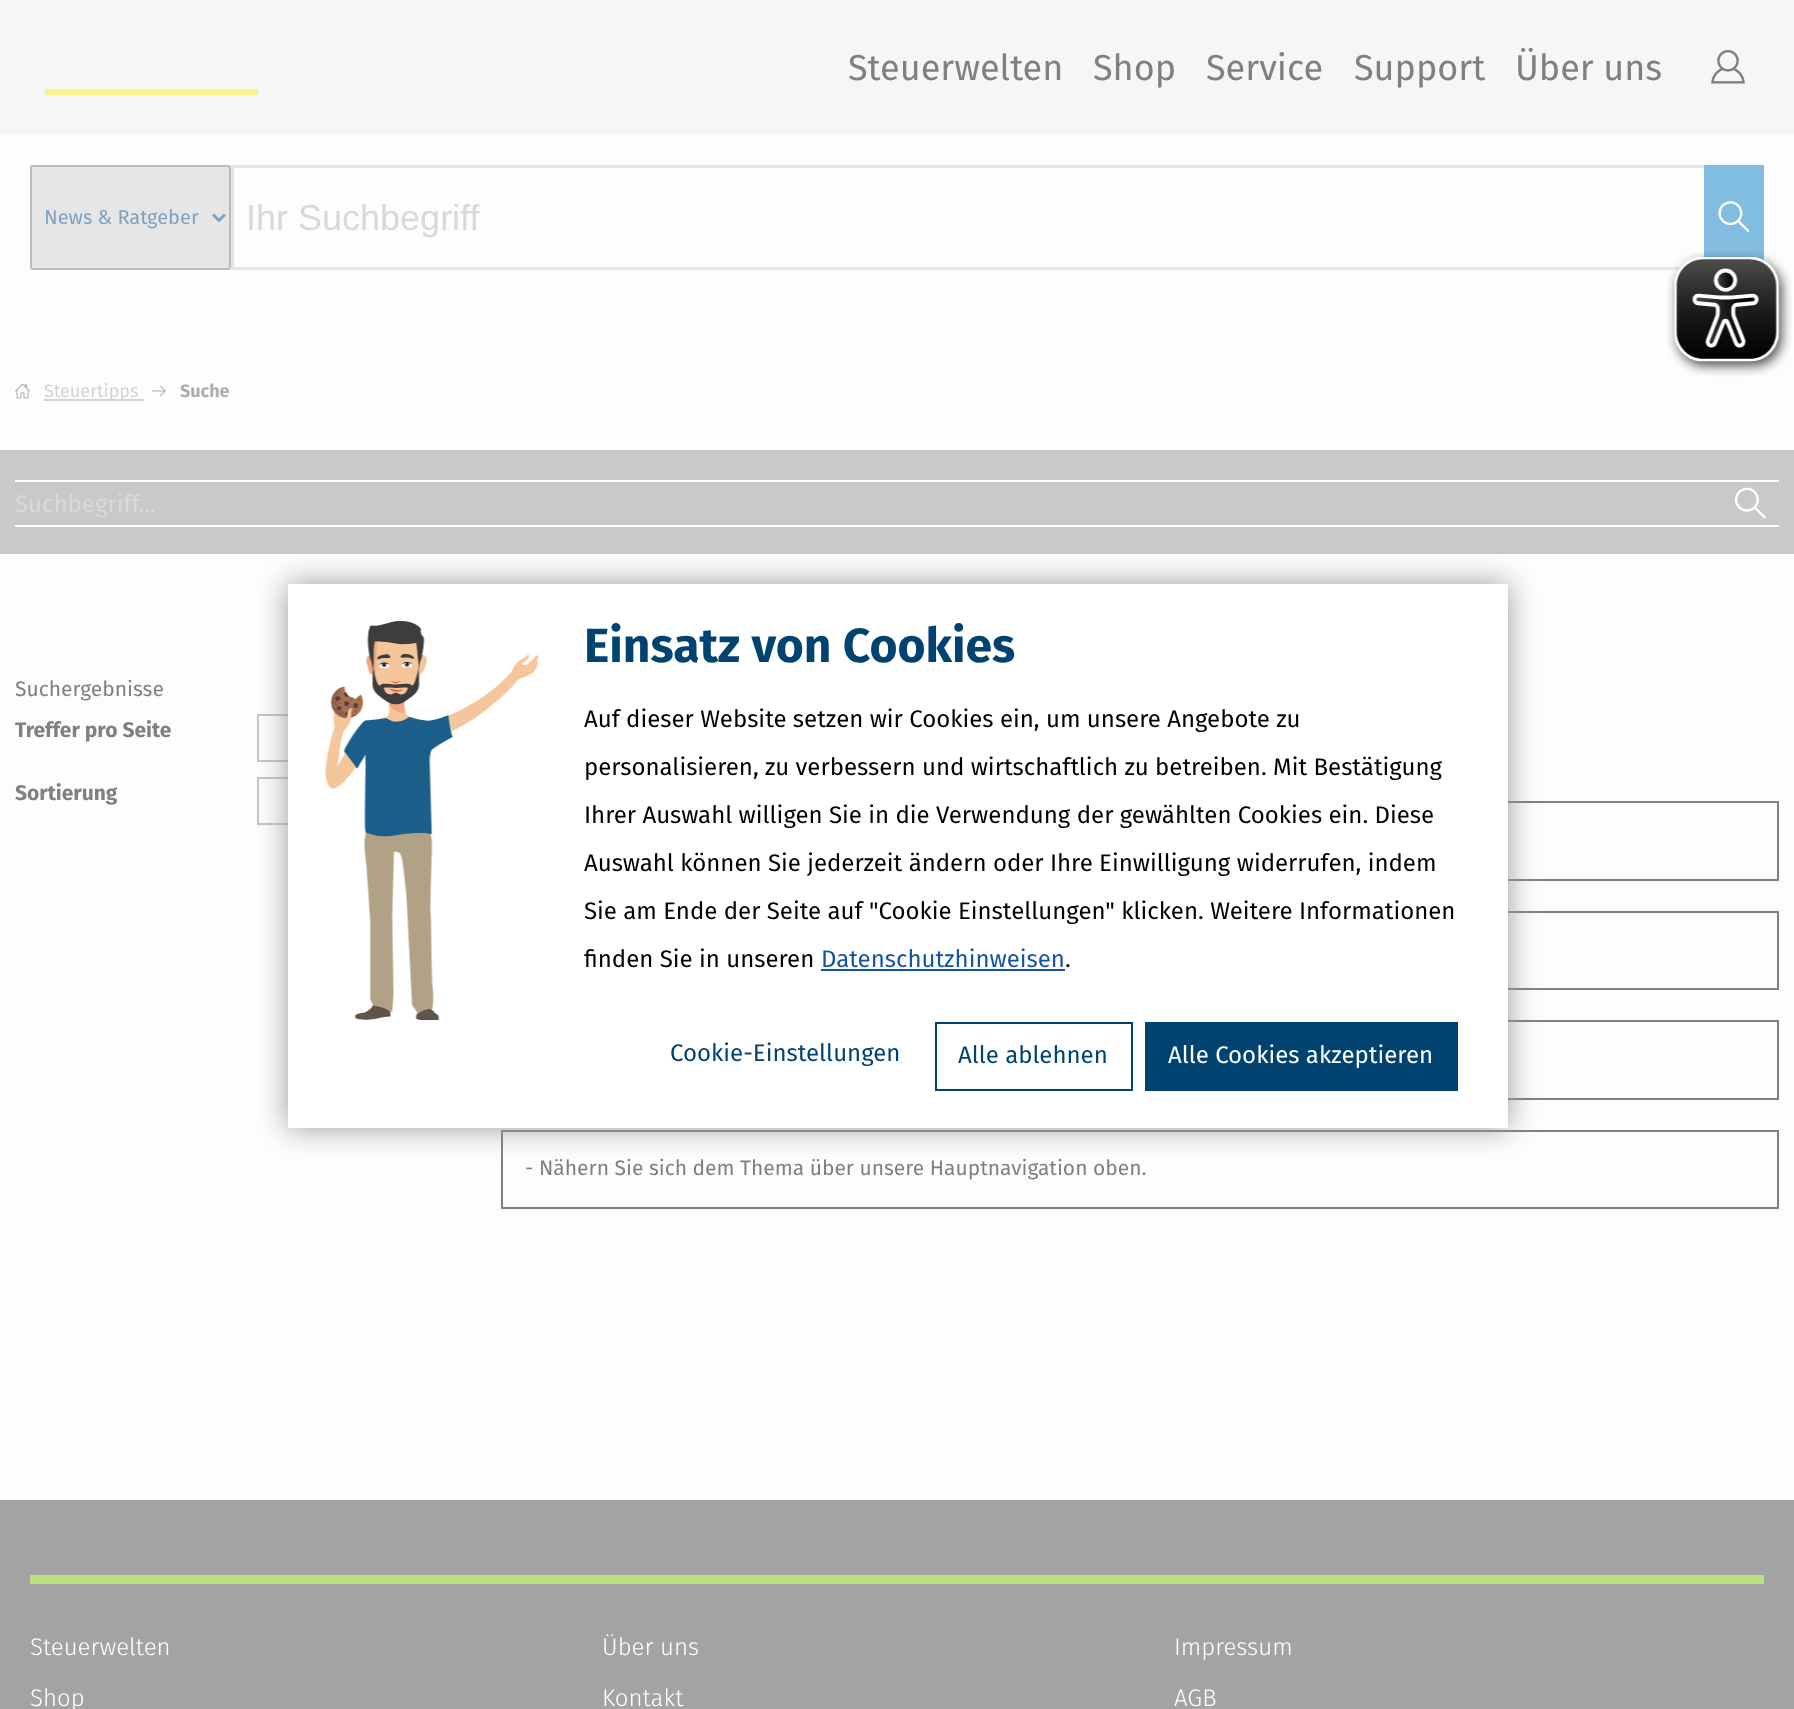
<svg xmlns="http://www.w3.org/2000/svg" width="1794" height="1709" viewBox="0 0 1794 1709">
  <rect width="100%" height="100%" fill="#fdfdfd"/>
  <path d="M0 0h1794v135H0z" fill="#f6f6f6"/>
  <image x="1711" y="50" width="34" height="34" href="img/1.png"/>
  <path d="M45 89h213v6H45z" fill="#fff08a"/>
  <rect x="31" y="166" width="199" height="103" rx="2" fill="#e6e6e6" stroke="#bbb" stroke-width="2"/>
  <path d="M213 214.5L219 220.5L225 214.5" fill="none" stroke="#80a1c0" stroke-width="3"/>
  <path d="M231 165h1473v3H231z" fill="#e6e6e6"/>
  <path d="M231 267h1451v3H231z" fill="#e6e6e6"/>
  <path d="M231 165h3v105H231z" fill="#e6e6e6"/>
  <path d="M1704 165h60v96H1704z" fill="#80bde1"/>
  <image x="1718" y="201" width="32" height="32" href="img/2.png"/>
  <image x="15" y="383" width="15" height="16" href="img/3.png"/>
  <path d="M44 399h94v2H44z" fill="#d3d3d3"/>
  <path d="M138 399h6v2H138z" fill="#d3d3d3"/>
  <image x="152" y="385" width="14" height="12" href="img/4.png"/>
  <path d="M0 450h1794v104H0z" fill="#c9c9c9"/>
  <path d="M15 480h1764v2H15z" fill="#fff"/>
  <path d="M15 525h1764v2H15z" fill="#fff"/>
  <image x="1734" y="487" width="32" height="32" href="img/5.png"/>
  <path d="M258 715h196v46H258z" fill="none" stroke="#c4c4c4" stroke-width="2"/>
  <path d="M258 778h196v46H258z" fill="none" stroke="#c4c4c4" stroke-width="2"/>
  <path d="M502 802h1276v78H502z" fill="none" stroke="#808080" stroke-width="2"/>
  <path d="M502 912h1276v77H502z" fill="none" stroke="#808080" stroke-width="2"/>
  <path d="M502 1021h1276v78H502z" fill="none" stroke="#808080" stroke-width="2"/>
  <path d="M502 1131h1276v77H502z" fill="none" stroke="#808080" stroke-width="2"/>
  <image x="1667" y="251" width="125" height="126" href="img/6.png"/>
  <path d="M288 584h1220v544H288z" fill="#999" filter="blur(15px)"/>
  <path d="M288 584h1220v544H288z" fill="#fff"/>
  <image x="325" y="621" width="215" height="400" href="img/7.png"/>
  <path d="M821 969h244v2H821z" fill="#1355a4"/>
  <path d="M936 1023h196v67H936z" fill="none" stroke="#004370" stroke-width="2"/>
  <path d="M1145 1022h313v69H1145z" fill="#004370"/>
  <path d="M0 1500h1794v209H0z" fill="#a3a3a3"/>
  <path d="M30 1575h1734v9H30z" fill="#badf80"/>
  <g font-family="Fira Sans" font-size="36" fill="#808080">
    <text x="848" y="80">Steuerwelten</text>
    <text x="1093" y="80">Shop</text>
    <text x="1206" y="80">Service</text>
    <text x="1354" y="80">Support</text>
    <text x="1515" y="80">Über uns</text>
  </g>
  <text x="44" y="224" font-family="Fira Sans" font-size="20" fill="#80a1c0">News &amp; Ratgeber</text>
  <text x="246" y="230" font-family="Liberation Sans" font-size="36" fill="#d9d9d9">Ihr Suchbegriff</text>
  <text x="44" y="397" font-family="Fira Sans" font-size="18" fill="#d3d3d3">Steuertipps</text>
  <text x="180" y="397" font-family="Fira Sans" font-size="18" font-weight="bold" fill="#adadad">Suche</text>
  <text x="15" y="512" font-family="Fira Sans" font-size="24" fill="#d9d9d9">Suchbegriff…</text>
  <text x="15" y="696" font-family="Fira Sans" font-size="21" fill="#808080">Suchergebnisse</text>
  <g font-family="Fira Sans" font-size="21" font-weight="bold" fill="#808080">
    <text x="15" y="737">Treffer pro Seite</text>
    <text x="15" y="800">Sortierung</text>
  </g>
  <text x="525" y="1175" font-family="Fira Sans" font-size="21" fill="#808080">- Nähern Sie sich dem Thema über unsere Hauptnavigation oben.</text>
  <text x="584" y="662" font-family="Fira Sans" font-size="48" font-weight="bold" fill="#004370">Einsatz von Cookies</text>
  <g font-family="Fira Sans" font-size="24" fill="#000">
    <text x="584" y="727">Auf dieser Website setzen wir Cookies ein, um unsere Angebote zu</text>
    <text x="584" y="775">personalisieren, zu verbessern und wirtschaftlich zu betreiben. Mit Bestätigung</text>
    <text x="584" y="823">Ihrer Auswahl willigen Sie in die Verwendung der gewählten Cookies ein. Diese</text>
    <text x="584" y="871">Auswahl können Sie jederzeit ändern oder Ihre Einwilligung widerrufen, indem</text>
    <text x="584" y="919">Sie am Ende der Seite auf "Cookie Einstellungen" klicken. Weitere Informationen</text>
    <text x="584" y="967">finden Sie in unseren</text>
  </g>
  <text x="821" y="967" font-family="Fira Sans" font-size="24" fill="#1355a4">Datenschutzhinweisen</text>
  <text x="1065" y="967" font-family="Fira Sans" font-size="24" fill="#000">.</text>
  <g font-family="Fira Sans" font-size="24" fill="#004370">
    <text x="670" y="1061">Cookie-Einstellungen</text>
    <text x="958" y="1063">Alle ablehnen</text>
  </g>
  <text x="1168" y="1063" font-family="Fira Sans" font-size="24" fill="#fff">Alle Cookies akzeptieren</text>
  <g font-family="Fira Sans" font-size="24" font-weight="300" fill="#fff">
    <text x="30" y="1655">Steuerwelten</text>
    <text x="30" y="1706">Shop</text>
    <text x="602" y="1655">Über uns</text>
    <text x="602" y="1706">Kontakt</text>
    <text x="1174" y="1655">Impressum</text>
    <text x="1174" y="1706">AGB</text>
  </g>
</svg>
